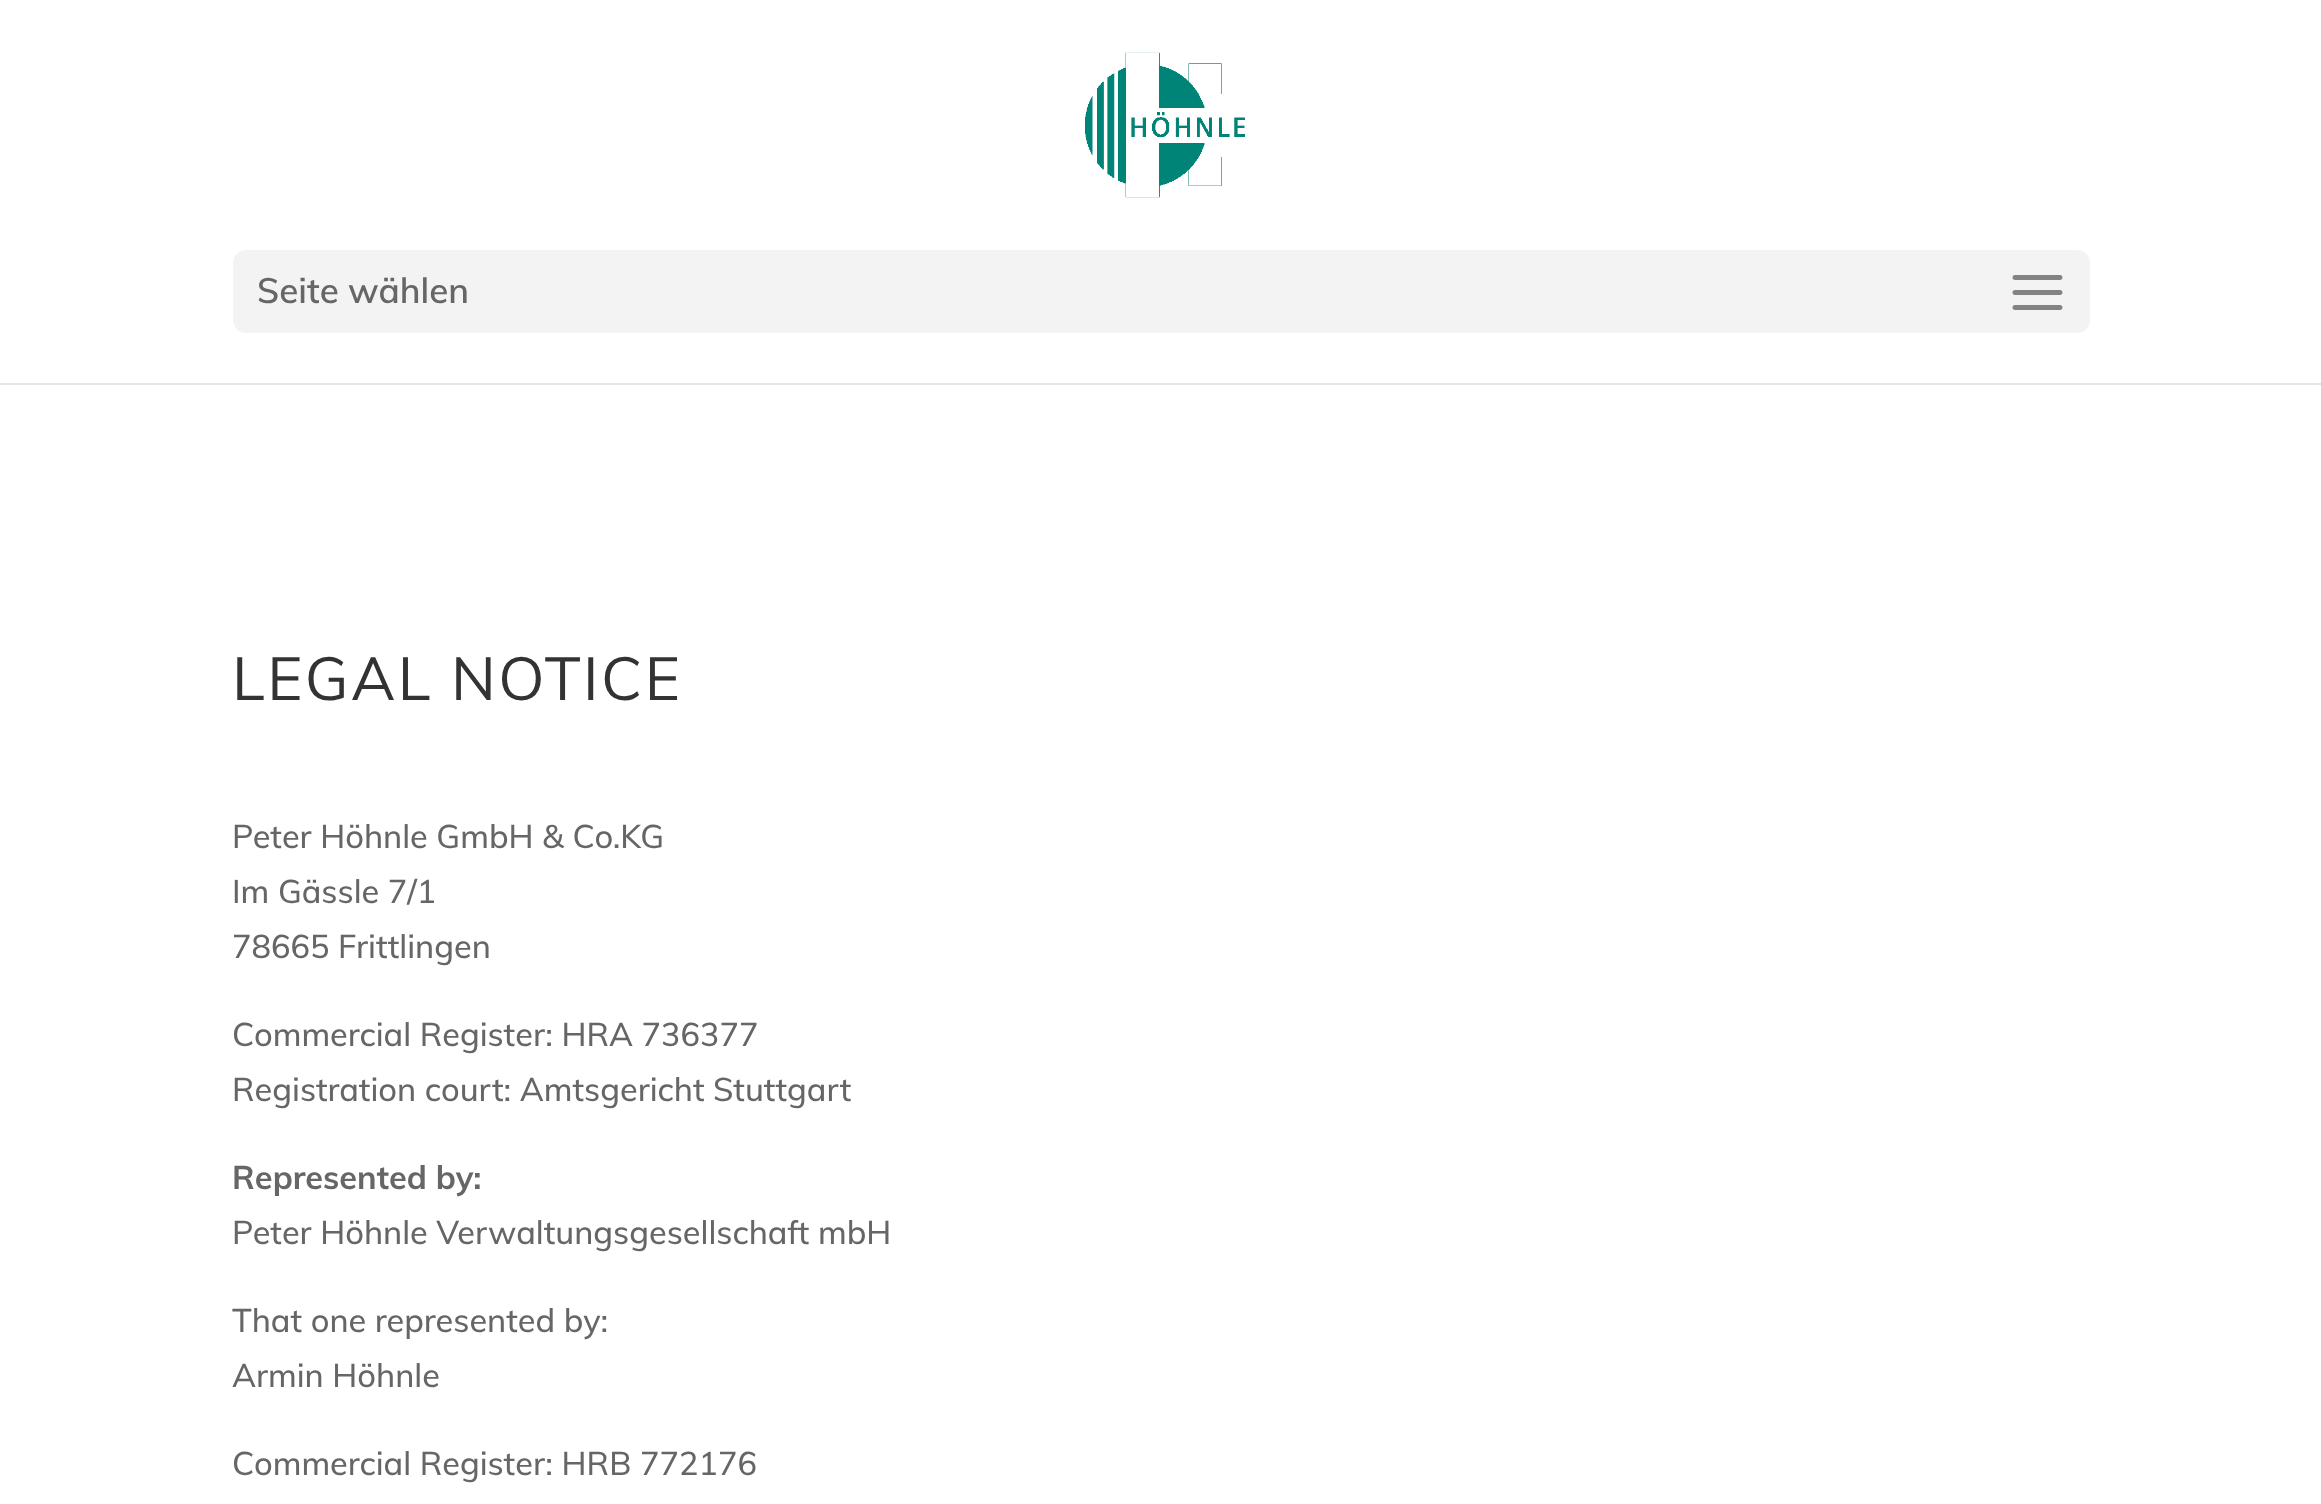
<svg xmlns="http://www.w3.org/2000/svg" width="2321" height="1504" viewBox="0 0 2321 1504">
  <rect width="100%" height="100%" fill="#fff"/>
  <path d="M0 382V385H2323V3H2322V382Z" fill="#e6e6e6"/>
  <path d="M0 382h2321v1H0z" fill="#fff"/>
  <image x="1085" y="52" width="160" height="146" href="img/1.png"/>
  <rect x="233" y="250" width="1857" height="83" rx="13" fill="#f3f3f3"/>
  <image x="2012" y="275" width="51" height="35" href="img/2.png"/>
  <text x="257" y="303" font-family="Muli" font-size="35" font-weight="600" fill="#666">Seite wählen</text>
  <text x="232" y="700" font-family="Muli" font-size="60" letter-spacing="2.5" fill="#333">LEGAL NOTICE</text>
  <g font-family="Muli" font-size="32.5" font-weight="500" fill="#666">
    <text x="232" y="848">Peter Höhnle GmbH &amp; Co.KG</text>
    <text x="232" y="903">Im Gässle 7/1</text>
    <text x="232" y="958">78665 Frittlingen</text>
    <text x="232" y="1046">Commercial Register: HRA 736377</text>
    <text x="232" y="1101">Registration court: Amtsgericht Stuttgart</text>
  </g>
  <text x="232" y="1189" font-family="Muli" font-size="32.5" font-weight="bold" fill="#666">Represented by:</text>
  <g font-family="Muli" font-size="32.5" font-weight="500" fill="#666">
    <text x="232" y="1244">Peter Höhnle Verwaltungsgesellschaft mbH</text>
    <text x="232" y="1332">That one represented by:</text>
    <text x="232" y="1387">Armin Höhnle</text>
    <text x="232" y="1475">Commercial Register: HRB 772176</text>
  </g>
</svg>
